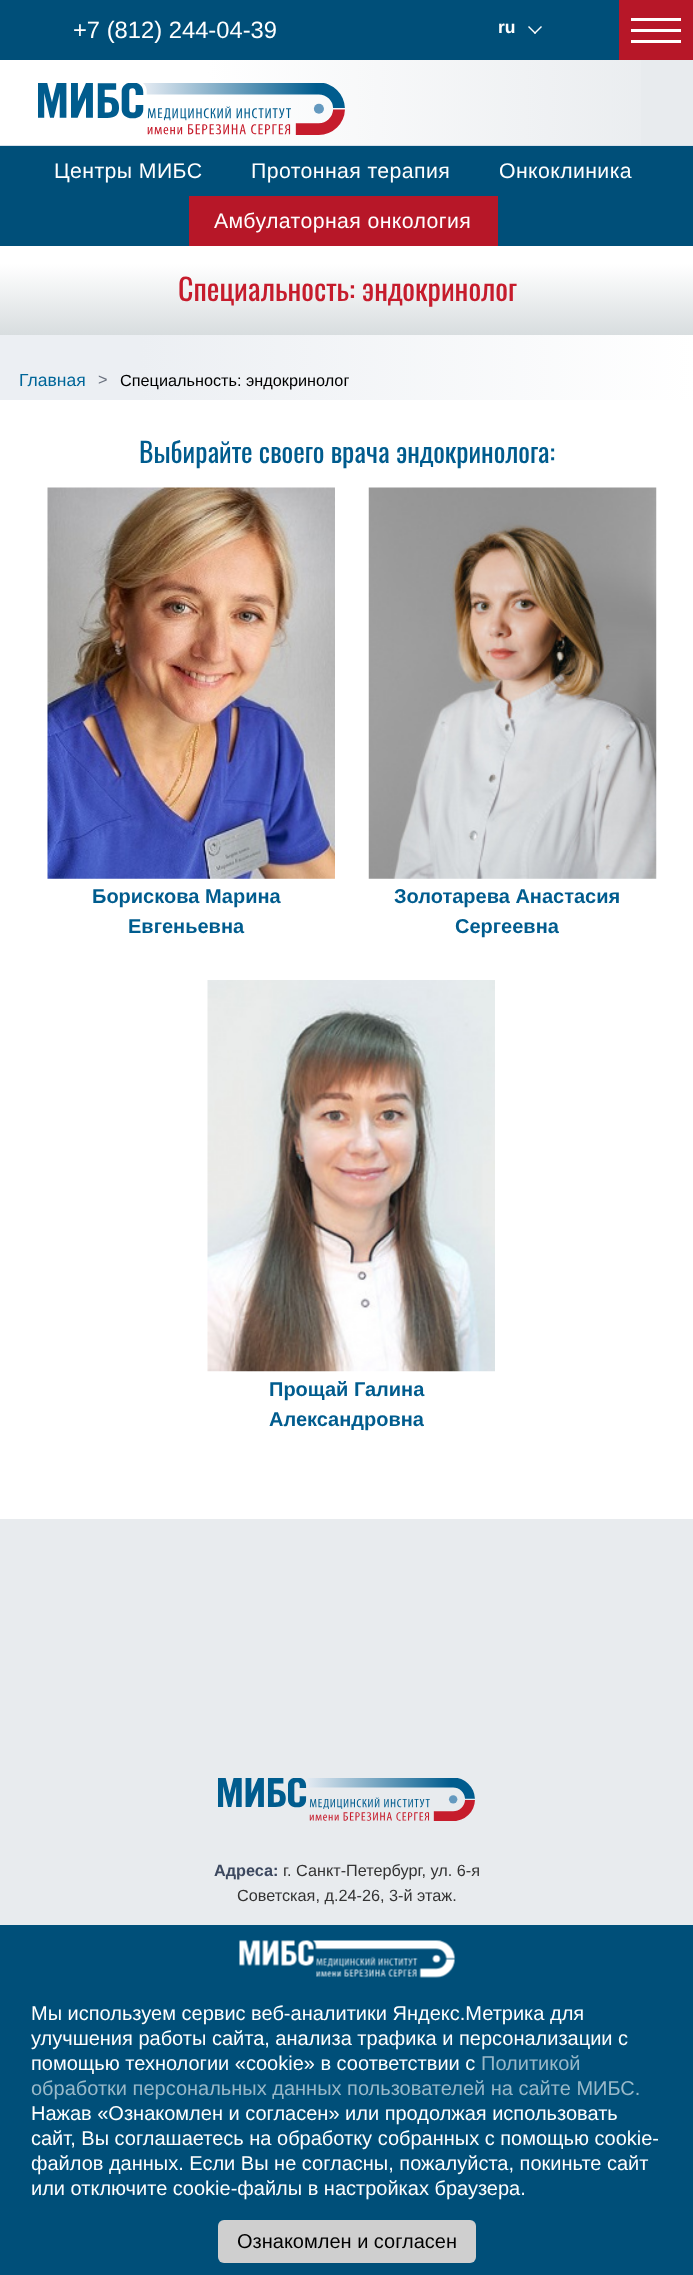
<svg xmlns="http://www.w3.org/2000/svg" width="693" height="2275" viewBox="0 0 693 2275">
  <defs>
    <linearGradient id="g1" gradientUnits="userSpaceOnUse" x1="0" y1="101" x2="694" y2="101"><stop offset="0" stop-color="#fff"/><stop offset="0.3" stop-color="#fff"/><stop offset="1" stop-color="#e8ebee"/></linearGradient>
    <linearGradient id="g2" gradientUnits="userSpaceOnUse" x1="347" y1="264" x2="347" y2="335"><stop offset="0" stop-color="#fff"/><stop offset="1" stop-color="#d8dddf"/></linearGradient>
    <linearGradient id="g3" gradientUnits="userSpaceOnUse" x1="0" y1="367" x2="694" y2="367"><stop offset="0.2" stop-color="#eceff3"/><stop offset="1" stop-color="#fff"/></linearGradient>
  </defs>
  <rect width="100%" height="100%" fill="#e8ebee"/>
  <path d="M0 0h619v60H0z" fill="#004f79"/>
  <path d="M541 26L542 27L535 34L534 33Z" fill="#fff"/>
  <path d="M529 26L536 33L535 34L528 27Z" fill="#fff"/>
  <path d="M619 0h74v60H619z" fill="#b71728"/>
  <path d="M631 18h50v3H631z" fill="#fff"/>
  <path d="M631 40h50v3H631z" fill="#fff"/>
  <path d="M631 29h50v3H631z" fill="#fff"/>
  <path d="M0 60h641v85H0z" fill="url(#g1)"/>
  <path d="M0 145h693v1H0z" fill="#d9e1ea"/>
  <image x="38" y="83" width="307" height="52" href="img/1.png"/>
  <path d="M0 146h693v100H0z" fill="#004f79"/>
  <path d="M189 196h309v50H189z" fill="#b71728"/>
  <path d="M0 246h693v18H0z" fill="#fff"/>
  <path d="M0 264h693v71H0z" fill="url(#g2)"/>
  <path d="M0 335h693v65H0z" fill="url(#g3)"/>
  <path d="M0 400h693v1119H0z" fill="#fff"/>
  <image x="47" y="487" width="288" height="392" href="img/2.png"/>
  <image x="368" y="487" width="289" height="392" href="img/3.png"/>
  <image x="207" y="980" width="288" height="392" href="img/4.png"/>
  <image x="218" y="1778" width="257" height="43" href="img/5.png"/>
  <path d="M0 1925h693v350H0z" fill="#004f79"/>
  <image x="239" y="1940" width="217" height="38" href="img/6.png"/>
  <rect x="218" y="2220" width="258" height="43" rx="6" fill="#cfcfcf"/>
  <text x="73" y="38" font-family="Liberation Sans" font-size="23.75" fill="#fff">+7 (812) 244-04-39</text>
  <text x="498" y="33" font-family="Liberation Sans" font-size="17.5" font-weight="bold" fill="#fff">ru</text>
  <g font-family="Liberation Sans" font-size="21.25" letter-spacing="0.4" fill="#fff">
    <text x="54" y="178">Центры МИБС</text>
    <text x="251" y="178">Протонная терапия</text>
    <text x="499" y="178">Онкоклиника</text>
    <text x="214" y="228">Амбулаторная онкология</text>
  </g>
  <text x="178" y="301" font-family="Oswald" font-size="30" fill="#c61c2c">Специальность: эндокринолог</text>
  <text x="19" y="386" font-family="Liberation Sans" font-size="17.5" fill="#069">Главная</text>
  <text x="98" y="385" font-family="Liberation Sans" font-size="16.25" fill="#6b727f">&gt;</text>
  <text x="120" y="386" font-family="Liberation Sans" font-size="16.25" fill="#000">Специальность: эндокринолог</text>
  <text x="139" y="463" font-family="Oswald" font-size="27.5" fill="#005c8e">Выбирайте своего врача эндокринолога:</text>
  <g font-family="Liberation Sans" font-size="20" font-weight="bold" fill="#005c8e">
    <text x="92" y="903">Борискова Марина</text>
    <text x="128" y="933">Евгеньевна</text>
    <text x="394" y="903">Золотарева Анастасия</text>
    <text x="455" y="933">Сергеевна</text>
    <text x="269" y="1396">Прощай Галина</text>
    <text x="269" y="1426">Александровна</text>
  </g>
  <text x="214" y="1876" font-family="Liberation Sans" font-size="16.25" font-weight="bold" fill="#3c485f">Адреса:</text>
  <g font-family="Liberation Sans" font-size="16.25" fill="#333">
    <text x="283" y="1876">г. Санкт-Петербург, ул. 6-я</text>
    <text x="237" y="1901">Советская, д.24-26, 3-й этаж.</text>
  </g>
  <g font-family="Liberation Sans" font-size="20" fill="#fff">
    <text x="31" y="2020">Мы используем сервис веб-аналитики Яндекс.Метрика для</text>
    <text x="31" y="2045">улучшения работы сайта, анализа трафика и персонализации с</text>
    <text x="31" y="2070">помощью технологии «cookie» в соответствии с</text>
  </g>
  <g font-family="Liberation Sans" font-size="20" fill="#99b9c9">
    <text x="481" y="2070">Политикой</text>
    <text x="31" y="2095">обработки персональных данных пользователей на сайте МИБС.</text>
  </g>
  <g font-family="Liberation Sans" font-size="20" fill="#fff">
    <text x="31" y="2120">Нажав «Ознакомлен и согласен» или продолжая использовать</text>
    <text x="31" y="2145">сайт, Вы соглашаетесь на обработку собранных с помощью cookie-</text>
    <text x="31" y="2170">файлов данных. Если Вы не согласны, пожалуйста, покиньте сайт</text>
    <text x="31" y="2195">или отключите cookie-файлы в настройках браузера.</text>
  </g>
  <text x="237" y="2248" font-family="Liberation Sans" font-size="20" fill="#000">Ознакомлен и согласен</text>
</svg>
